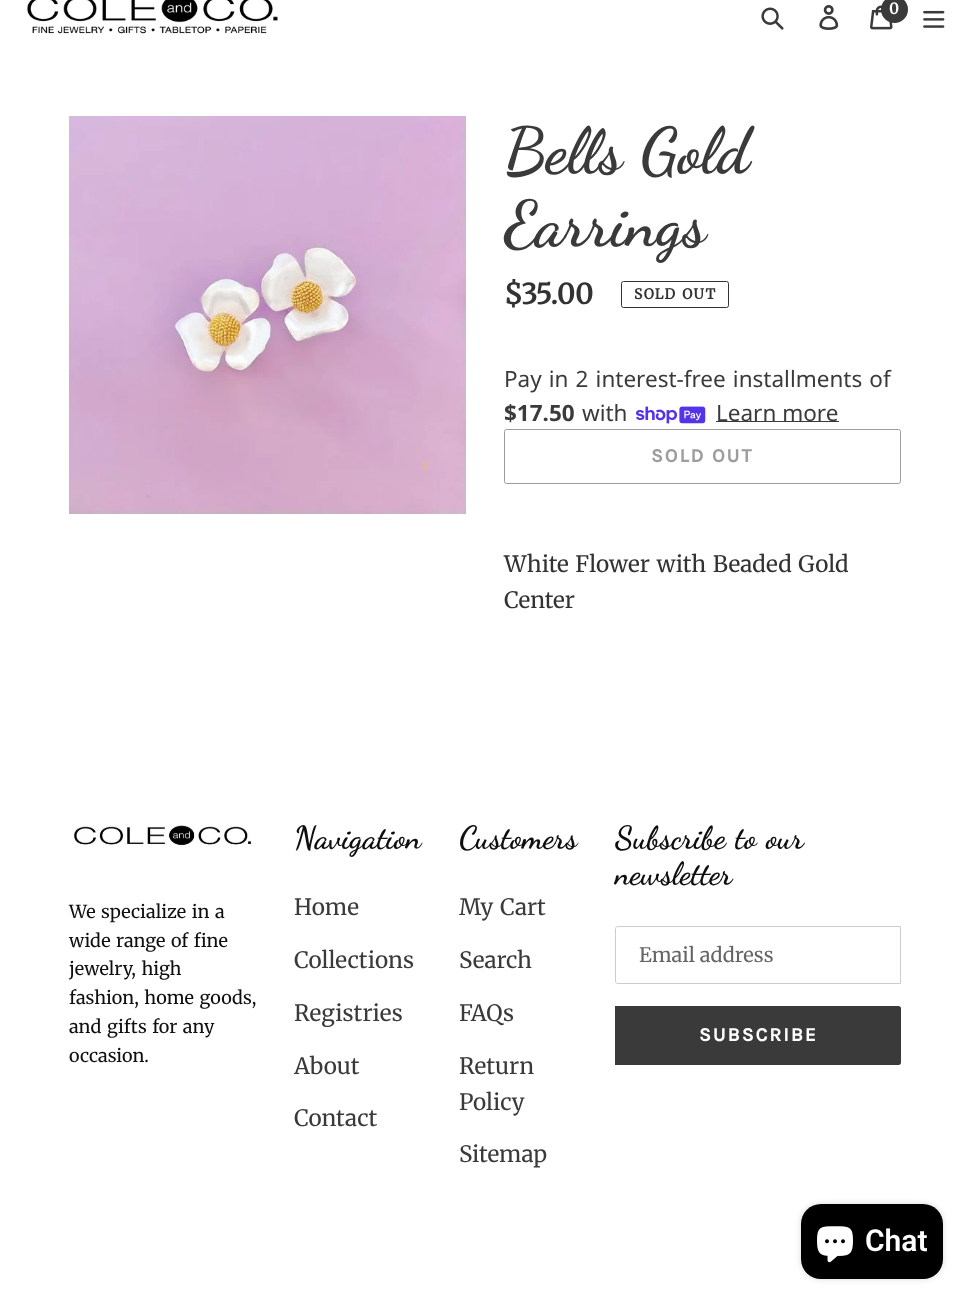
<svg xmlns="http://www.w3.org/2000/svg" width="970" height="1305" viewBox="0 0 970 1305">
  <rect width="100%" height="100%" fill="#fff"/>
  <image x="27" y="0" width="251" height="34" href="img/1.png"/>
  <image x="761" y="7" width="23" height="23" href="img/2.png"/>
  <image x="819" y="5" width="20" height="25" href="img/3.png"/>
  <image x="870" y="5" width="23" height="25" href="img/4.png"/>
  <circle cx="894.5" cy="9.5" r="13.5" fill="#3a3a3a"/>
  <image x="923" y="10" width="22" height="18" href="img/5.png"/>
  <image x="69" y="116" width="397" height="398" href="img/6.png"/>
  <rect x="621.5" y="281.5" width="107" height="26" rx="2" fill="none" stroke="#333232"/>
  <image x="636" y="406" width="70" height="18" href="img/7.png"/>
  <path d="M716 421h123v1H716z" fill="#3a3a3a"/>
  <rect x="504.5" y="429.5" width="396" height="54" rx="2" fill="none" stroke="#9d9d9d"/>
  <image x="74" y="825" width="178" height="21" href="img/8.png"/>
  <path d="M617.5 926.5H900.5V983.5H617.5C616.5 983.5 615.5 982.5 615.5 981.5V928.5C615.5 927.5 616.5 926.5 617.5 926.5Z" fill="none" stroke="#ccc"/>
  <path d="M615 1006H898.5C900 1006 901 1007 901 1008.5V1062.5C901 1064 900 1065 898.5 1065H615Z" fill="#3a3a3a"/>
  <rect x="801" y="1204" width="142" height="75" rx="20" fill="#00000026" filter="blur(3px)"/>
  <rect x="801" y="1204" width="142" height="75" rx="20" fill="#000"/>
  <image x="817" y="1226" width="36" height="37" href="img/9.png"/>
  <text x="889" y="14" font-family="Merriweather" font-size="15" font-weight="bold" fill="#fff">0</text>
  <g font-family="Dancing Script" font-size="64.5" font-weight="bold" fill="#3a3a3a">
    <text x="504" y="172" word-spacing="1.25">Bells Gold</text>
    <text x="504" y="245">Earrings</text>
  </g>
  <text x="504" y="304" font-family="Merriweather" font-size="28" font-weight="bold" fill="#333232">$35.00</text>
  <text x="634" y="299" word-spacing="1.25" font-family="Merriweather" font-size="14" font-weight="bold" letter-spacing="1.25" fill="#333232">SOLD OUT</text>
  <text x="504" y="387" word-spacing="1.25" font-family="Noto Sans" font-size="22.5" fill="#3a3a3a">Pay in 2 interest-free installments of</text>
  <text x="504" y="421" font-family="Noto Sans" font-size="22.5" font-weight="bold" fill="#3a3a3a">$17.50</text>
  <g font-family="Noto Sans" font-size="22.5" fill="#3a3a3a">
    <text x="582" y="421">with</text>
    <text x="716" y="421">Learn more</text>
  </g>
  <text x="651" y="462" font-family="Karla" font-size="19.25" font-weight="bold" letter-spacing="1.9" fill="#9d9d9d">SOLD OUT</text>
  <g font-family="Merriweather" font-size="22.5" font-weight="300" fill="#333232">
    <text x="504" y="572" word-spacing="1.25">White Flower with Beaded Gold</text>
    <text x="504" y="608">Center</text>
  </g>
  <g font-family="Merriweather" font-size="18" font-weight="300" fill="#0f0f0f">
    <text x="69" y="918" word-spacing="1.25">We specialize in a</text>
    <text x="69" y="947" word-spacing="1.25">wide range of fine</text>
    <text x="69" y="975" word-spacing="1.25">jewelry, high</text>
    <text x="69" y="1004" word-spacing="1.25">fashion, home goods,</text>
    <text x="69" y="1033" word-spacing="1.25">and gifts for any</text>
    <text x="69" y="1062">occasion.</text>
  </g>
  <text x="294" y="848" font-family="Dancing Script" font-size="32" font-weight="bold" fill="#0f0f0f">Navigation</text>
  <g font-family="Merriweather" font-size="22.5" font-weight="300" fill="#3a3a3a">
    <text x="294" y="915">Home</text>
    <text x="294" y="968">Collections</text>
    <text x="294" y="1021">Registries</text>
    <text x="294" y="1074">About</text>
    <text x="294" y="1126">Contact</text>
  </g>
  <text x="459" y="848" font-family="Dancing Script" font-size="32" font-weight="bold" fill="#0f0f0f">Customers</text>
  <g font-family="Merriweather" font-size="22.5" font-weight="300" fill="#3a3a3a">
    <text x="459" y="915" word-spacing="1.25">My Cart</text>
    <text x="459" y="968">Search</text>
    <text x="459" y="1021">FAQs</text>
    <text x="459" y="1074">Return</text>
    <text x="459" y="1110">Policy</text>
    <text x="459" y="1162">Sitemap</text>
  </g>
  <g font-family="Dancing Script" font-size="32" font-weight="bold" fill="#0f0f0f">
    <text x="615" y="848" word-spacing="1.25">Subscribe to our</text>
    <text x="615" y="884">newsletter</text>
  </g>
  <text x="639" y="962" font-family="Merriweather" font-size="20" font-weight="300" fill="#666">Email address</text>
  <text x="699" y="1041" font-family="Karla" font-size="19.25" font-weight="bold" letter-spacing="1.9" fill="#fff">SUBSCRIBE</text>
  <text x="865" y="1251" font-family="Roboto" font-size="30" font-weight="600" fill="#fff">Chat</text>
</svg>
